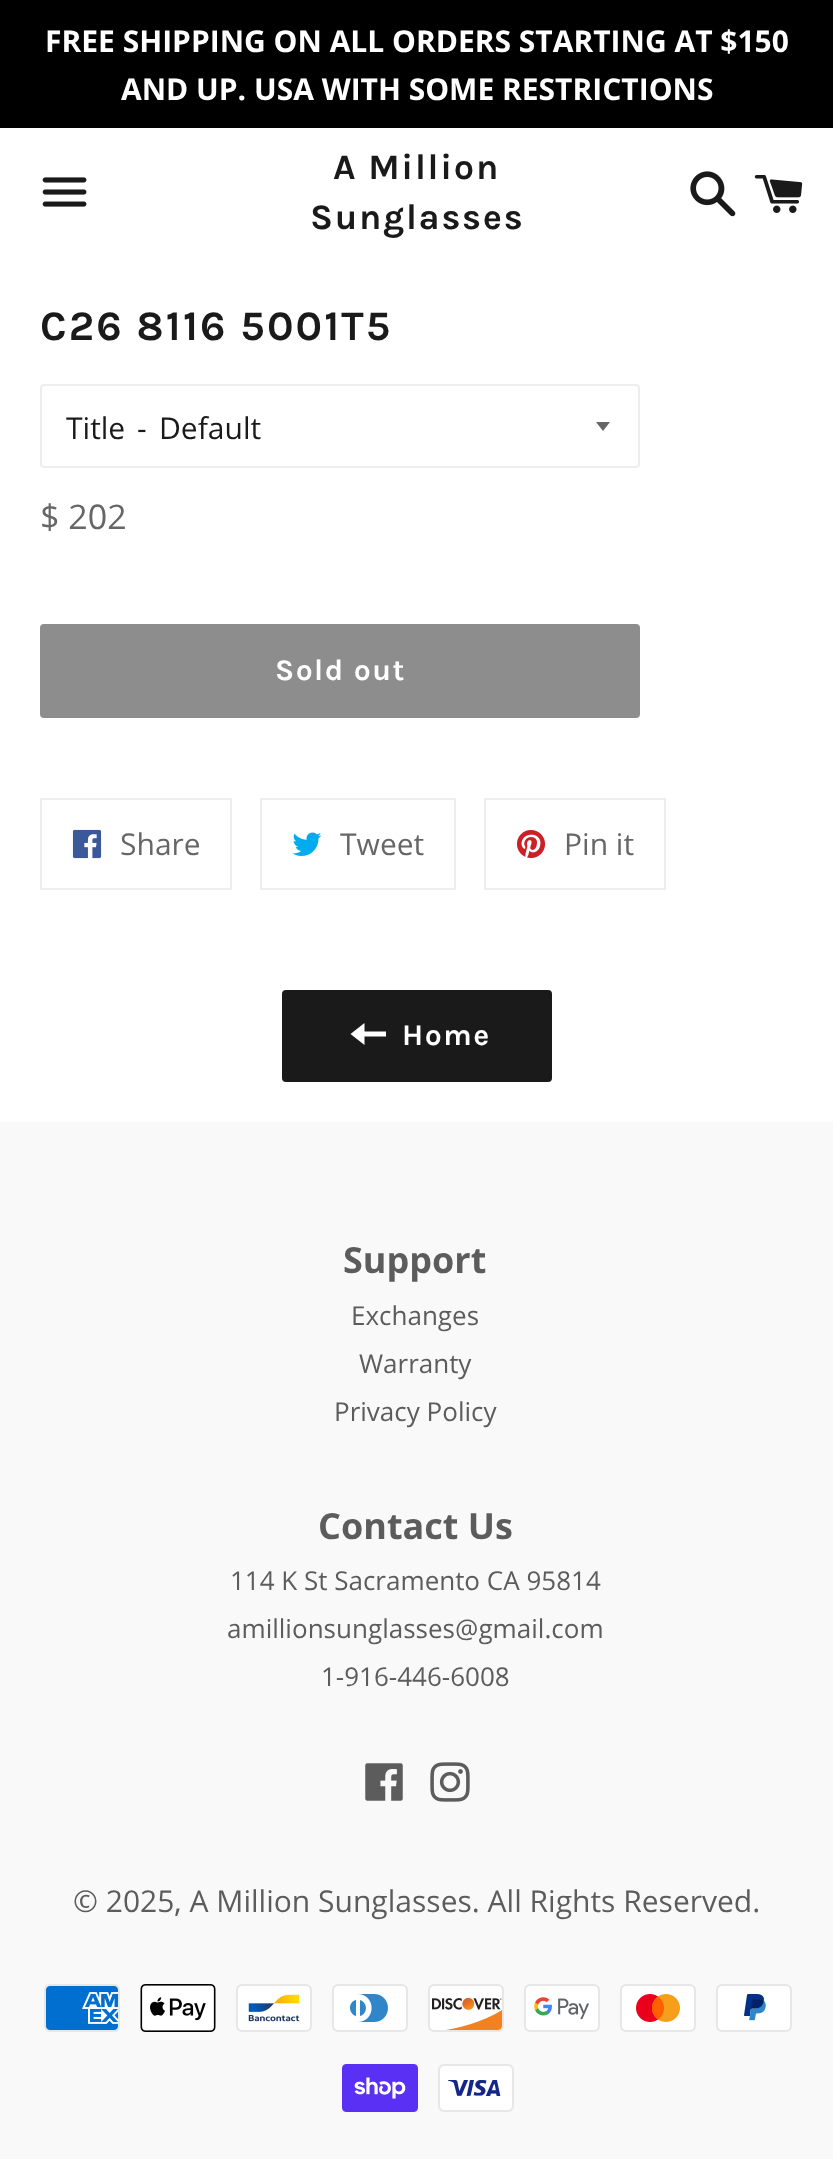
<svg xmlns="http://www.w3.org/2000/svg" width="833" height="2159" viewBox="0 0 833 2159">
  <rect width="100%" height="100%" fill="#fff"/>
  <path d="M0 0h833v128H0z" fill="#000"/>
  <image x="42" y="177" width="45" height="30" href="img/1.png"/>
  <image x="690" y="171" width="46" height="46" href="img/2.png"/>
  <image x="754" y="175" width="49" height="38" href="img/3.png"/>
  <rect x="41" y="385" width="598" height="82" rx="3" fill="none" stroke="#eee" stroke-width="2"/>
  <path d="M596 422L603 431L610 422Z" fill="#666"/>
  <rect x="42" y="626" width="596" height="90" rx="2" fill="#8d8d8d" stroke="#8d8d8d" stroke-width="4"/>
  <path d="M41 799h190v90H41z" fill="none" stroke="#eee" stroke-width="2"/>
  <image x="72" y="829" width="30" height="30" href="img/4.png"/>
  <path d="M261 799h194v90H261z" fill="none" stroke="#eee" stroke-width="2"/>
  <image x="292" y="832" width="30" height="24" href="img/5.png"/>
  <path d="M485 799h180v90H485z" fill="none" stroke="#eee" stroke-width="2"/>
  <image x="516" y="830" width="30" height="28" href="img/6.png"/>
  <rect x="282" y="990" width="270" height="92" rx="4" fill="#1a1a1a"/>
  <path d="M364.5 1031.5V1023L350.5 1034L364.5 1045V1036.5H386V1031.5Z" fill="#fff"/>
  <path d="M0 1122h833v1037H0z" fill="#f9f9f9"/>
  <image x="365" y="1763" width="38" height="38" href="img/7.png"/>
  <image x="430" y="1762" width="40" height="40" href="img/8.png"/>
  <image x="44" y="1984" width="76" height="48" href="img/9.png"/>
  <image x="140" y="1984" width="76" height="48" href="img/10.png"/>
  <image x="236" y="1984" width="76" height="48" href="img/11.png"/>
  <image x="332" y="1984" width="76" height="48" href="img/12.png"/>
  <image x="428" y="1984" width="76" height="48" href="img/13.png"/>
  <image x="524" y="1984" width="76" height="48" href="img/14.png"/>
  <image x="620" y="1984" width="76" height="48" href="img/15.png"/>
  <image x="716" y="1984" width="76" height="48" href="img/16.png"/>
  <image x="342" y="2064" width="76" height="48" href="img/17.png"/>
  <image x="438" y="2064" width="76" height="48" href="img/18.png"/>
  <g font-family="Open Sans" font-size="30" font-weight="bold" fill="#fff">
    <text x="45" y="52">FREE SHIPPING ON ALL ORDERS STARTING AT $150</text>
    <text x="121" y="100">AND UP. USA WITH SOME RESTRICTIONS</text>
  </g>
  <g font-family="Karla" font-size="36" font-weight="bold" letter-spacing="1.75" fill="#1a1a1a">
    <text x="333" y="179">A Million</text>
    <text x="310" y="229">Sunglasses</text>
  </g>
  <text x="40" y="340" font-family="Karla" font-size="42" font-weight="bold" letter-spacing="2.1" fill="#1a1a1a">C26 8116 5001T5</text>
  <g font-family="Open Sans" font-size="30" fill="#1a1a1a">
    <text x="66" y="439">Title</text>
    <text x="137" y="439">-</text>
    <text x="159" y="439">Default</text>
  </g>
  <text x="40" y="529" font-family="Open Sans" font-size="34" fill="#666">$ 202</text>
  <text x="275" y="680" font-family="Karla" font-size="30" font-weight="bold" letter-spacing="1.5" fill="#fff">Sold out</text>
  <g font-family="Open Sans" font-size="30" fill="#666">
    <text x="120" y="855">Share</text>
    <text x="340" y="855">Tweet</text>
    <text x="564" y="855">Pin it</text>
  </g>
  <text x="402" y="1045" font-family="Karla" font-size="30" font-weight="bold" letter-spacing="1.5" fill="#fff">Home</text>
  <text x="343" y="1273" font-family="Open Sans" font-size="36" font-weight="bold" fill="#5c5c5c">Support</text>
  <g font-family="Open Sans" font-size="26" fill="#5c5c5c">
    <text x="351" y="1325">Exchanges</text>
    <text x="359" y="1373">Warranty</text>
    <text x="334" y="1421">Privacy Policy</text>
  </g>
  <text x="318" y="1539" font-family="Open Sans" font-size="36" font-weight="bold" fill="#5c5c5c">Contact Us</text>
  <g font-family="Open Sans" font-size="26" fill="#5c5c5c">
    <text x="230" y="1590">114 K St Sacramento CA 95814</text>
    <text x="227" y="1638">amillionsunglasses@gmail.com</text>
    <text x="321" y="1686">1-916-446-6008</text>
  </g>
  <text x="73" y="1912" font-family="Open Sans" font-size="30" fill="#5c5c5c">© 2025, A Million Sunglasses. All Rights Reserved.</text>
</svg>
